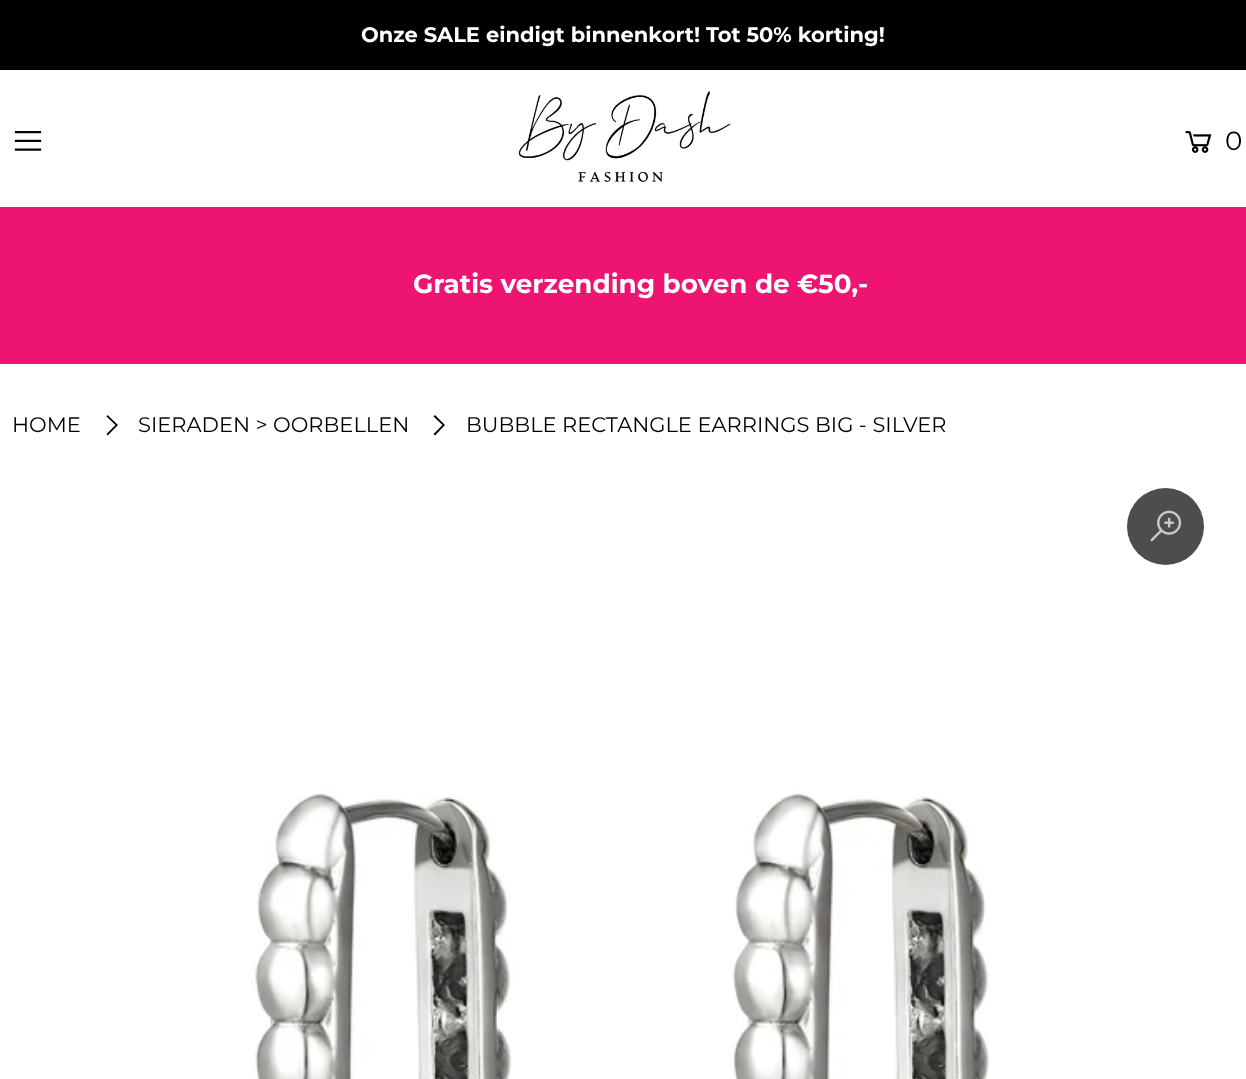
<svg xmlns="http://www.w3.org/2000/svg" width="1246" height="1079" viewBox="0 0 1246 1079">
  <rect width="100%" height="100%" fill="#fff"/>
  <path d="M0 0h1246v70H0z" fill="#000"/>
  <image x="14" y="131" width="28" height="20" href="img/1.png"/>
  <image x="518" y="91" width="213" height="92" href="img/2.png"/>
  <image x="1185" y="131" width="27" height="22" href="img/3.png"/>
  <path d="M0 207h1246v157H0z" fill="#ee1572"/>
  <path d="M107.5 415L118 425L107.5 435.5L106.5 434L115.5 425L106.5 416.5Z" fill="#000"/>
  <path d="M435 415L445 425L435 435.5L433.5 434L442.5 425L433.5 416.5Z" fill="#000"/>
  <circle cx="1165.5" cy="526.5" r="38.5" fill="#4d4d4d"/>
  <image x="1150" y="510" width="32" height="32" href="img/4.png"/>
  <image x="251" y="790" width="738" height="289" href="img/5.png"/>
  <text x="361" y="42" font-family="Montserrat" font-size="21" font-weight="bold" fill="#fff">Onze SALE eindigt binnenkort! Tot 50% korting!</text>
  <text x="1225" y="150" font-family="Montserrat" font-size="26.25" font-weight="100" fill="#000">0</text>
  <text x="413" y="293" font-family="Montserrat" font-size="26.25" font-weight="bold" fill="#fff">Gratis verzending boven de €50,-</text>
  <g font-family="Montserrat" font-size="21" font-weight="100" fill="#000">
    <text x="12" y="432">HOME</text>
    <text x="138" y="432">SIERADEN &gt; OORBELLEN</text>
    <text x="466" y="432">BUBBLE RECTANGLE EARRINGS BIG - SILVER</text>
  </g>
</svg>
